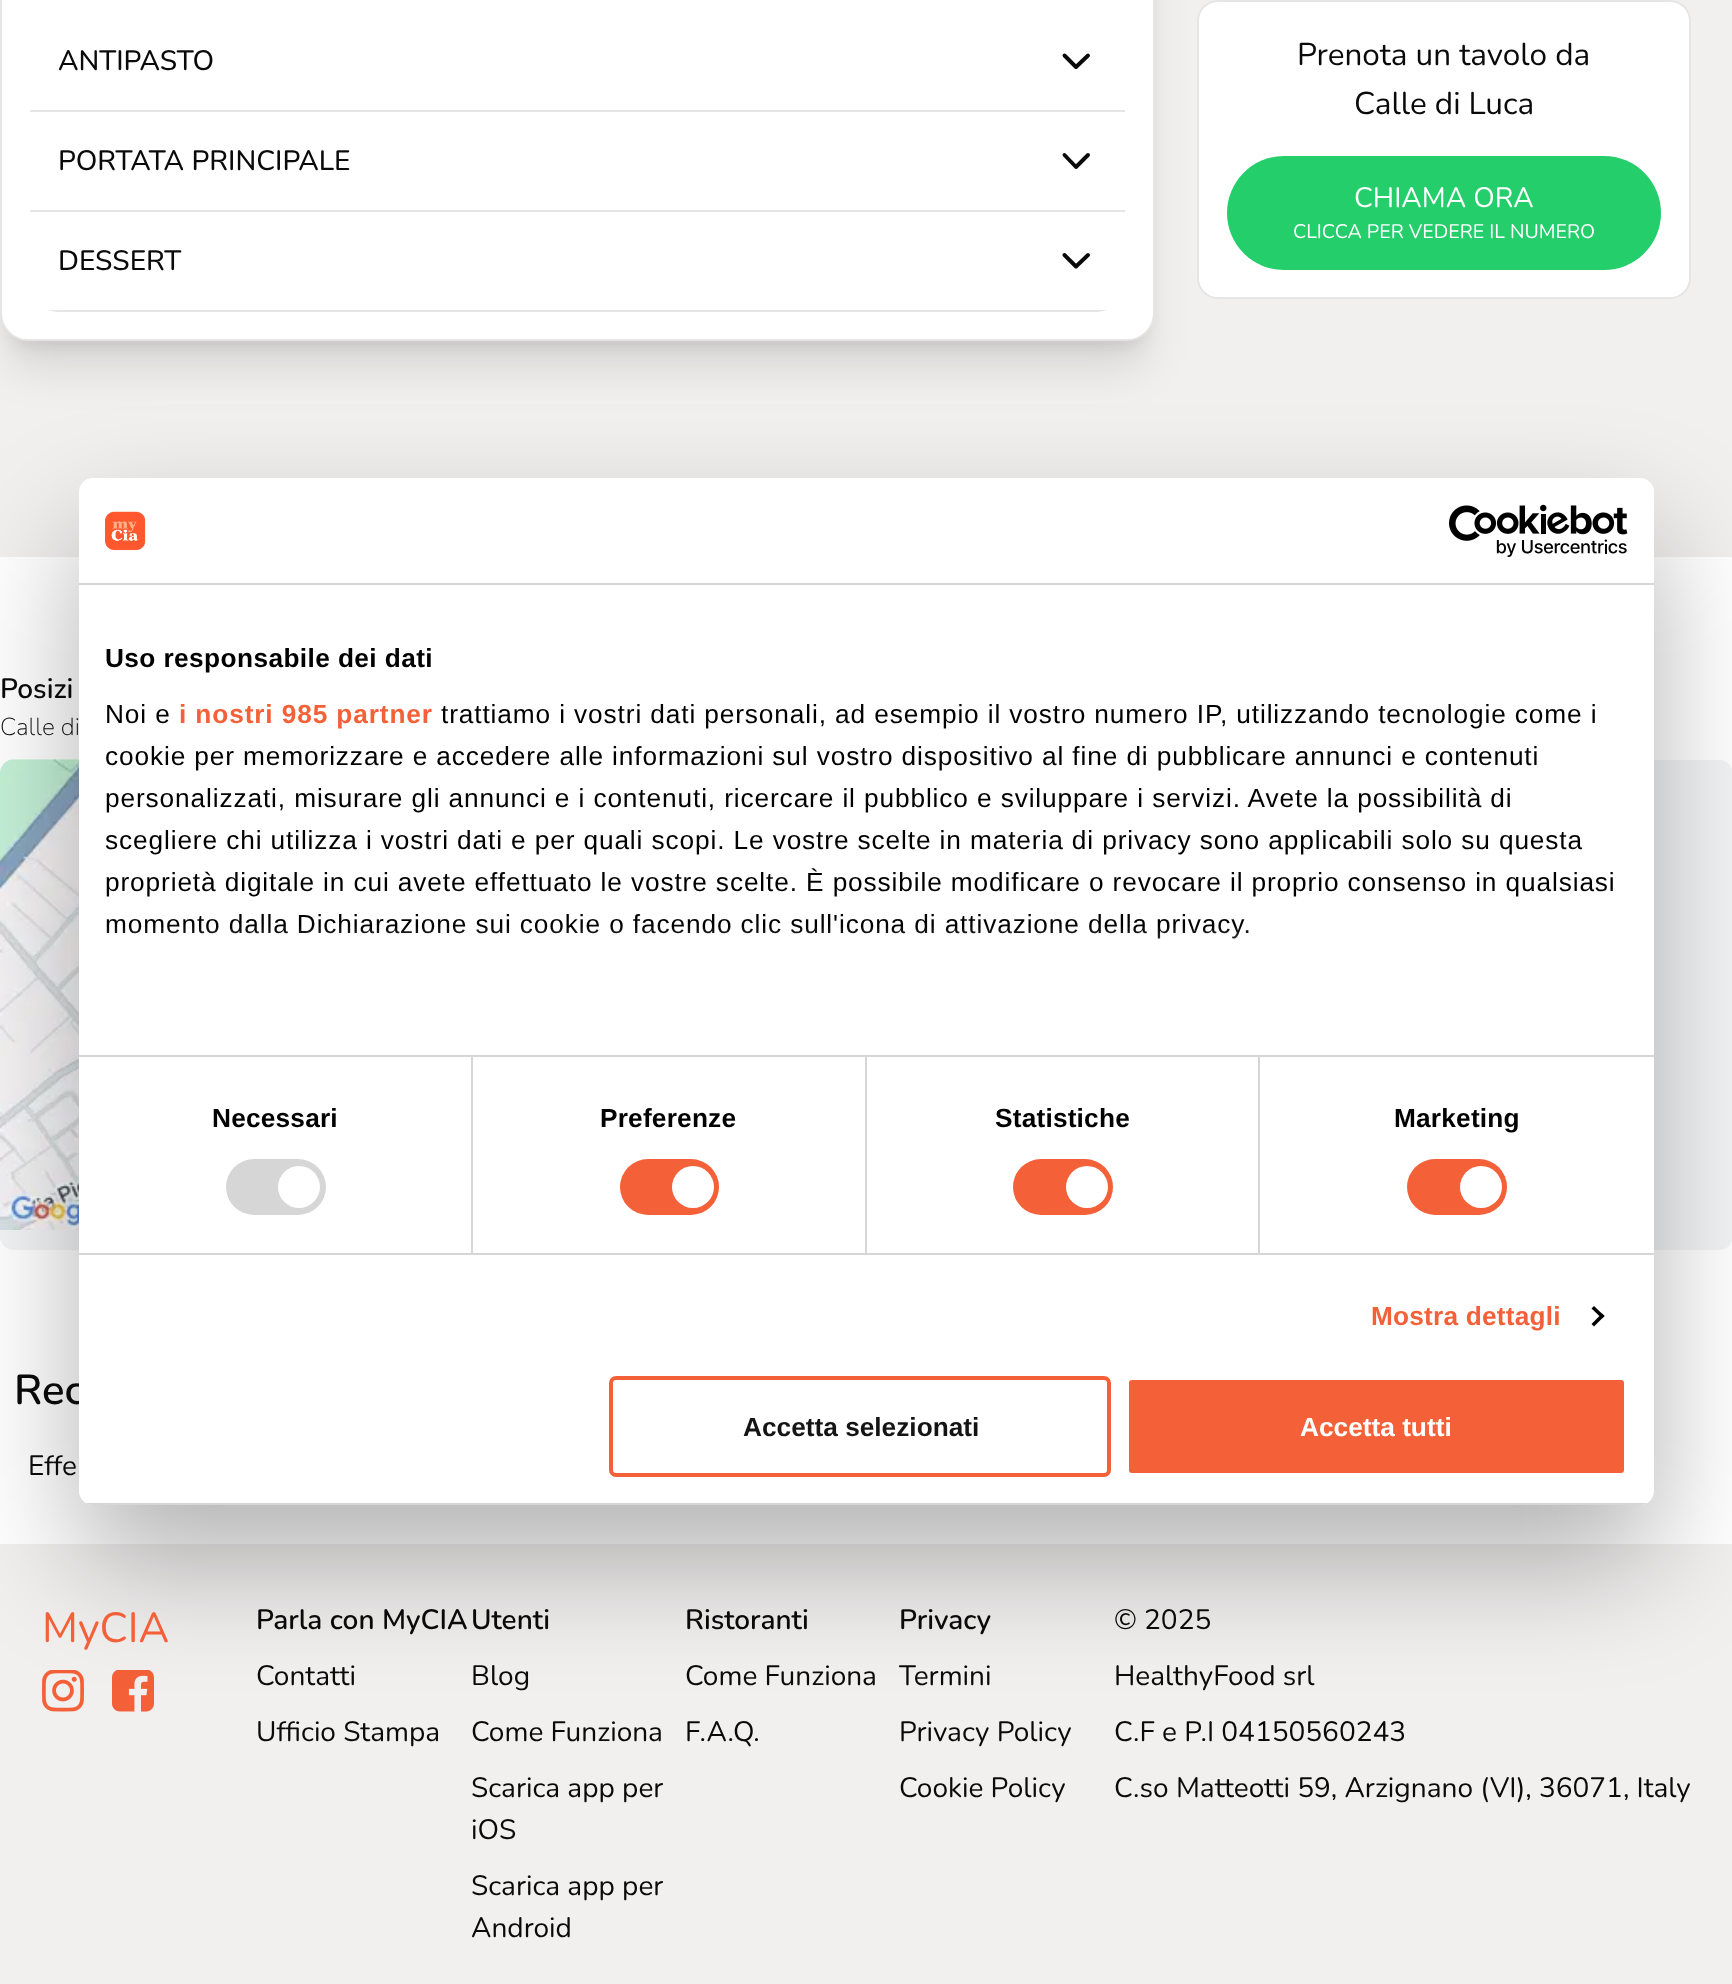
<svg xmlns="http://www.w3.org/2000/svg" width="1732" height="1984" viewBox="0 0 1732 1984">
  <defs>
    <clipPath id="clip1"><rect x="30" y="12" width="1095" height="300" rx="28"/></clipPath>
    <linearGradient id="g1" gradientUnits="userSpaceOnUse" x1="855" y1="1056" x2="855" y2="925"><stop offset="0" stop-color="#fff"/><stop offset="0.5" stop-color="#fff" stop-opacity="0.8"/><stop offset="1" stop-color="#fff" stop-opacity="0"/></linearGradient>
    <clipPath id="clip2"><rect x="79" y="478" width="1575" height="1027" rx="14"/></clipPath>
  </defs>
  <rect width="100%" height="100%" fill="#fff"/>
  <path d="M0 0h1732v557H0z" fill="#f2efef"/>
  <rect x="11" y="-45" width="1134" height="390" rx="18" fill="#0000001a" filter="blur(9px)"/>
  <rect x="9" y="-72" width="1137" height="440" rx="19" fill="#0000001a" filter="blur(22px)"/>
  <rect x="1" y="-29" width="1153" height="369" rx="27" fill="#fff" stroke="#e5e5e5" stroke-width="2"/>
  <path d="M30 110h1095v2H30z" fill="#e5e5e5"/>
  <path d="M1064.5 55.5L1076 67L1088 55.5" fill="none" stroke="#0a0a0a" stroke-width="3.9" stroke-linecap="round" stroke-linejoin="round"/>
  <path d="M30 210h1095v2H30z" fill="#e5e5e5"/>
  <path d="M1064.5 155L1076 167L1088 155" fill="none" stroke="#0a0a0a" stroke-width="3.9" stroke-linecap="round" stroke-linejoin="round"/>
  <g clip-path="url(#clip1)">
    <path d="M47 310h1060v2H47z" fill="#e5e5e5"/>
  </g>
  <path d="M1064.5 255L1076 266.5L1088 255" fill="none" stroke="#0a0a0a" stroke-width="3.9" stroke-linecap="round" stroke-linejoin="round"/>
  <rect x="1198" y="1" width="492" height="297" rx="20" fill="#fff" stroke="#e5e5e5" stroke-width="2"/>
  <rect x="1227" y="156" width="434" height="114" rx="57" fill="#23ce6b"/>
  <rect y="760" width="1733" height="490" rx="14" fill="#f3f4f6"/>
  <image x="0" y="759" width="79" height="471" href="img/1.png"/>
  <path d="M0 1544h1732v440H0z" fill="#f2efef"/>
  <image x="42" y="1670" width="42" height="42" href="img/2.png"/>
  <image x="112" y="1670" width="42" height="42" href="img/3.png"/>
  <rect x="79" y="534" width="1575" height="1027" rx="14" fill="#0000004d" filter="blur(59.5px)"/>
  <g font-family="Nunito" font-size="28" font-weight="500" fill="#0a0a0a">
    <text x="58" y="70">ANTIPASTO</text>
    <text x="58" y="170">PORTATA PRINCIPALE</text>
    <text x="58" y="270">DESSERT</text>
  </g>
  <g font-family="Nunito" font-size="31.5" fill="#0a0a0a">
    <text x="1297" y="65">Prenota un tavolo da</text>
    <text x="1354" y="114">Calle di Luca</text>
  </g>
  <text x="1354" y="207" font-family="Nunito" font-size="28" fill="#fff">CHIAMA ORA</text>
  <text x="1293" y="238" font-family="Nunito" font-size="19.6" fill="#fff">CLICCA PER VEDERE IL NUMERO</text>
  <text x="0" y="698" font-family="Nunito" font-size="28" font-weight="600" fill="#0a0a0a">Posizi</text>
  <text x="0" y="735" font-family="Nunito" font-size="24.5" font-weight="200" fill="#0a0a0a">Calle di</text>
  <text x="14" y="1404" font-family="Nunito" font-size="42" font-weight="600" fill="#0a0a0a">Rec</text>
  <text x="28" y="1475" font-family="Nunito" font-size="28" fill="#0a0a0a">Effe</text>
  <text x="42" y="1642" font-family="Nunito" font-size="42" fill="#f46139">MyCIA</text>
  <text x="256" y="1629" font-family="Nunito" font-size="28" font-weight="600" fill="#0a0a0a">Parla con MyCIA</text>
  <g font-family="Nunito" font-size="28" fill="#0a0a0a">
    <text x="256" y="1685">Contatti</text>
    <text x="256" y="1741">Ufficio Stampa</text>
  </g>
  <text x="471" y="1629" font-family="Nunito" font-size="28" font-weight="600" fill="#0a0a0a">Utenti</text>
  <g font-family="Nunito" font-size="28" fill="#0a0a0a">
    <text x="471" y="1685">Blog</text>
    <text x="471" y="1741">Come Funziona</text>
    <text x="471" y="1797">Scarica app per</text>
    <text x="471" y="1839">iOS</text>
    <text x="471" y="1895">Scarica app per</text>
    <text x="471" y="1937">Android</text>
  </g>
  <text x="685" y="1629" font-family="Nunito" font-size="28" font-weight="600" fill="#0a0a0a">Ristoranti</text>
  <g font-family="Nunito" font-size="28" fill="#0a0a0a">
    <text x="685" y="1685">Come Funziona</text>
    <text x="685" y="1741">F.A.Q.</text>
  </g>
  <text x="899" y="1629" font-family="Nunito" font-size="28" font-weight="600" fill="#0a0a0a">Privacy</text>
  <g font-family="Nunito" font-size="28" fill="#0a0a0a">
    <text x="899" y="1685">Termini</text>
    <text x="899" y="1741">Privacy Policy</text>
    <text x="899" y="1797">Cookie Policy</text>
    <text x="1114" y="1629">© 2025</text>
    <text x="1114" y="1685">HealthyFood srl</text>
    <text x="1114" y="1741">C.F e P.I 04150560243</text>
    <text x="1114" y="1797">C.so Matteotti 59, Arzignano (VI), 36071, Italy</text>
  </g>
  <rect x="79" y="478" width="1575" height="1027" rx="14" fill="#fff"/>
  <path d="M79 583h1575v2H79z" fill="#d6d6d6"/>
  <image x="105" y="511" width="41" height="40" href="img/4.png"/>
  <image x="1449" y="504" width="179" height="53" href="img/5.png"/>
  <path d="M79 1055h1575v2H79z" fill="#d6d6d6"/>
  <text x="105" y="667" font-family="Liberation Sans" font-size="26.25" font-weight="bold" letter-spacing="0.4" fill="#000">Uso responsabile dei dati</text>
  <text x="105" y="723" font-family="Liberation Sans" font-size="26.25" letter-spacing="0.88" fill="#000">Noi e</text>
  <text x="179" y="723" font-family="Liberation Sans" font-size="26.25" font-weight="bold" letter-spacing="0.88" fill="#f46139">i nostri 985 partner</text>
  <g font-family="Liberation Sans" font-size="26.25" letter-spacing="0.88" fill="#000">
    <text x="441" y="723">trattiamo i vostri dati personali, ad esempio il vostro numero IP, utilizzando tecnologie come i</text>
    <text x="105" y="765">cookie per memorizzare e accedere alle informazioni sul vostro dispositivo al fine di pubblicare annunci e contenuti</text>
    <text x="105" y="807">personalizzati, misurare gli annunci e i contenuti, ricercare il pubblico e sviluppare i servizi. Avete la possibilità di</text>
    <text x="105" y="849">scegliere chi utilizza i vostri dati e per quali scopi. Le vostre scelte in materia di privacy sono applicabili solo su questa</text>
    <text x="105" y="891">proprietà digitale in cui avete effettuato le vostre scelte. È possibile modificare o revocare il proprio consenso in qualsiasi</text>
    <text x="105" y="933">momento dalla Dichiarazione sui cookie o facendo clic sull'icona di attivazione della privacy.</text>
  </g>
  <path d="M106 927h1142v12H106z" fill="url(#g1)"/>
  <path d="M79 1253h1575v2H79z" fill="#d6d6d6"/>
  <path d="M471 1057h2v196H471z" fill="#d6d6d6"/>
  <text x="212" y="1127" font-family="Liberation Sans" font-size="26.25" font-weight="bold" letter-spacing="0.2" fill="#000">Necessari</text>
  <rect x="226" y="1159" width="100" height="56" rx="28" fill="#d6d6d6"/>
  <circle cx="299" cy="1187" r="21" fill="#fff"/>
  <path d="M865 1057h2v196H865z" fill="#d6d6d6"/>
  <text x="600" y="1127" font-family="Liberation Sans" font-size="26.25" font-weight="bold" letter-spacing="0.2" fill="#000">Preferenze</text>
  <rect x="620" y="1159" width="99" height="56" rx="28" fill="#f46139"/>
  <circle cx="693" cy="1187" r="21" fill="#fff"/>
  <path d="M1258 1057h2v196H1258z" fill="#d6d6d6"/>
  <text x="995" y="1127" font-family="Liberation Sans" font-size="26.25" font-weight="bold" letter-spacing="0.2" fill="#000">Statistiche</text>
  <rect x="1013" y="1159" width="100" height="56" rx="28" fill="#f46139"/>
  <circle cx="1087" cy="1187" r="21" fill="#fff"/>
  <text x="1394" y="1127" font-family="Liberation Sans" font-size="26.25" font-weight="bold" letter-spacing="0.2" fill="#000">Marketing</text>
  <rect x="1407" y="1159" width="100" height="56" rx="28" fill="#f46139"/>
  <circle cx="1481" cy="1187" r="21" fill="#fff"/>
  <text x="1371" y="1325" font-family="Liberation Sans" font-size="26.25" font-weight="bold" letter-spacing="0.2" fill="#f46139">Mostra dettagli</text>
  <path d="M1594 1306L1604.5 1316L1602 1318.5L1591.5 1308.5Z" fill="#000"/>
  <path d="M1602 1313.5L1604.5 1316L1594 1326.5L1591.5 1324Z" fill="#000"/>
  <g clip-path="url(#clip2)">
    <path d="M79 1503h1575v2H79z" fill="#d6d6d6"/>
  </g>
  <rect x="611" y="1378" width="498" height="97" rx="5" fill="none" stroke="#f46139" stroke-width="4"/>
  <text x="743" y="1436" font-family="Liberation Sans" font-size="26.25" font-weight="bold" fill="#141414">Accetta selezionati</text>
  <rect x="1127" y="1378" width="499" height="97" rx="5" fill="#f46139" stroke="#fff" stroke-width="4"/>
  <text x="1300" y="1436" font-family="Liberation Sans" font-size="26.25" font-weight="bold" fill="#fff">Accetta tutti</text>
</svg>
